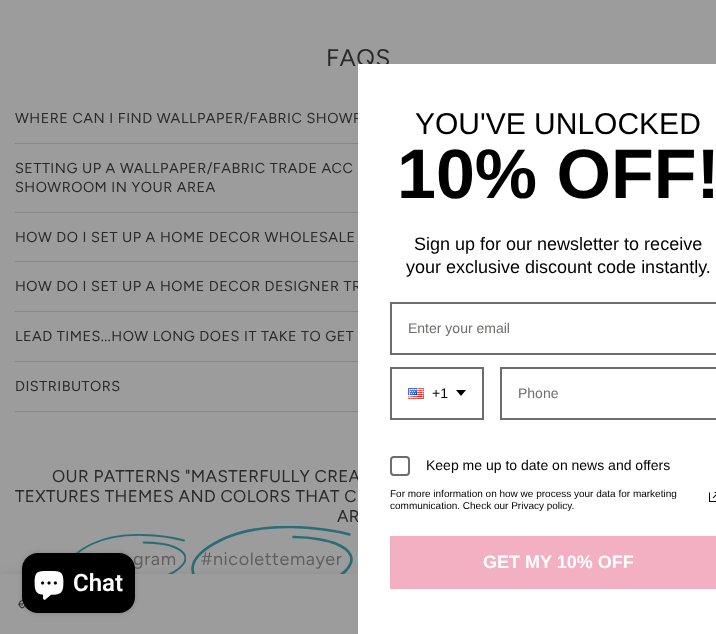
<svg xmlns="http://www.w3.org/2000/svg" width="716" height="634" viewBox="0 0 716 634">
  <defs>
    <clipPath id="clip1"><path d="M69 534h117v51H69z"/></clipPath>
    <clipPath id="clip2"><path d="M191 526h162v70H191z"/></clipPath>
  </defs>
  <rect width="100%" height="100%" fill="#9c9c9c"/>
  <path d="M15 143h343v1H15z" fill="#858789"/>
  <path d="M15 212h343v1H15z" fill="#858789"/>
  <path d="M15 261h343v1H15z" fill="#858789"/>
  <path d="M15 311h343v1H15z" fill="#858789"/>
  <path d="M15 361h343v1H15z" fill="#858789"/>
  <path d="M15 411h343v1H15z" fill="#858789"/>
  <text x="326" y="66" font-family="Figtree" font-size="24" letter-spacing="0.5" fill="#292a28">FAQS</text>
  <g font-family="Figtree" font-size="14.45" letter-spacing="0.5" fill="#292a28">
    <text x="15" y="123">WHERE CAN I FIND WALLPAPER/FABRIC SHOWR</text>
    <text x="15" y="173">SETTING UP A WALLPAPER/FABRIC TRADE ACC</text>
    <text x="15" y="192">SHOWROOM IN YOUR AREA</text>
    <text x="15" y="242">HOW DO I SET UP A HOME DECOR WHOLESALE</text>
    <text x="15" y="291">HOW DO I SET UP A HOME DECOR DESIGNER TR</text>
    <text x="15" y="341">LEAD TIMES...HOW LONG DOES IT TAKE TO GET</text>
    <text x="15" y="391">DISTRIBUTORS</text>
  </g>
  <g font-family="Figtree" font-size="17" letter-spacing="0.35" fill="#292a28">
    <text x="52" y="482">OUR PATTERNS "MASTERFULLY CREA</text>
    <text x="15" y="502">TEXTURES THEMES AND COLORS THAT C</text>
    <text x="337" y="522">AR</text>
  </g>
  <text x="133" y="565" font-family="Figtree" font-size="18" letter-spacing="0.6" fill="#5f5f60">gram</text>
  <g clip-path="url(#clip1)">
    <path d="M184 540.5C166 535.5 122.5 529.5 92 544C61.5 558.5 70 572 78.5 577C87.5 582.5 120.5 589 162.5 577C176.5 573 199.5 557.5 174 547C170.5 545.5 159 542.5 143.5 542.5" fill="none" stroke="#286d78" stroke-width="1.9" stroke-linecap="round" stroke-linejoin="round"/>
  </g>
  <text x="201" y="565" font-family="Figtree" font-size="18" letter-spacing="0.6" fill="#5f5f60">#nicolettemayer</text>
  <g clip-path="url(#clip2)">
    <path d="M349.5 534.5C324.5 528 264.5 519.5 222 539.5C180 560 191.5 578 204 585.5C216.5 592.5 261.5 602 319.5 585.5C339 580 371 558 335.5 543.5C330.5 541.5 314.5 537 293.5 537" fill="none" stroke="#286d78" stroke-width="2.6" stroke-linecap="round" stroke-linejoin="round"/>
  </g>
  <path d="M0 575h716v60H0z" fill="#2d2e2f26" filter="blur(4px)"/>
  <path d="M358 64h358v570H358z" fill="#fff"/>
  <rect x="391" y="457" width="18" height="18" rx="3" fill="none" stroke="#6d6d6b" stroke-width="2"/>
  <text x="426" y="470" font-family="Liberation Sans" font-size="14" fill="#000">Keep me up to date on news and offers</text>
  <path d="M391 368h92v51H391z" fill="none" stroke="#6d6d6b" stroke-width="2"/>
  <path d="M456 390H466L461 396Z" fill="#000" fill-rule="evenodd"/>
  <path d="M501 368h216v51H501z" fill="none" stroke="#6d6d6b" stroke-width="2"/>
  <text x="518" y="398" font-family="Liberation Sans" font-size="14" fill="#6d6d6b">Phone</text>
  <text x="432" y="398" font-family="Liberation Sans" font-size="14" fill="#000">+1</text>
  <image x="408" y="388" width="16" height="11" href="img/1.png"/>
  <image x="709" y="492" width="7" height="10" href="img/2.png"/>
  <path d="M390 536h326v53H390z" fill="#f3b0c3"/>
  <text x="483" y="568" font-family="Liberation Sans" font-size="18" font-weight="bold" fill="#fff">GET MY 10% OFF</text>
  <g font-family="Liberation Sans" font-size="10" fill="#000">
    <text x="390" y="509">communication. Check our Privacy policy.</text>
    <text x="390" y="497">For more information on how we process your data for marketing</text>
  </g>
  <path d="M391 303h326v51H391z" fill="none" stroke="#6d6d6b" stroke-width="2"/>
  <text x="408" y="333" font-family="Liberation Sans" font-size="14" fill="#6d6d6b">Enter your email</text>
  <g font-family="Liberation Sans" font-size="18" fill="#000">
    <text x="406" y="273">your exclusive discount code instantly.</text>
    <text x="414" y="250">Sign up for our newsletter to receive</text>
  </g>
  <text x="397" y="198" font-family="Liberation Sans" font-size="70" font-weight="bold" fill="#000">10% OFF!</text>
  <text x="415" y="134" font-family="Liberation Sans" font-size="30" fill="#000">YOU'VE UNLOCKED</text>
  <path d="M0 574h358v60H0z" fill="#9c9c9c"/>
  <text x="18" y="608" font-family="Figtree" font-size="11" letter-spacing="1" fill="#292a28">€</text>
  <rect x="22" y="553" width="113" height="60" rx="16" fill="#00000026" filter="blur(2.5px)"/>
  <rect x="22" y="553" width="113" height="60" rx="16" fill="#000"/>
  <image x="34" y="571" width="30" height="29" href="img/3.png"/>
  <text x="73" y="591" font-family="Roboto" font-size="24" font-weight="600" fill="#fff">Chat</text>
</svg>
